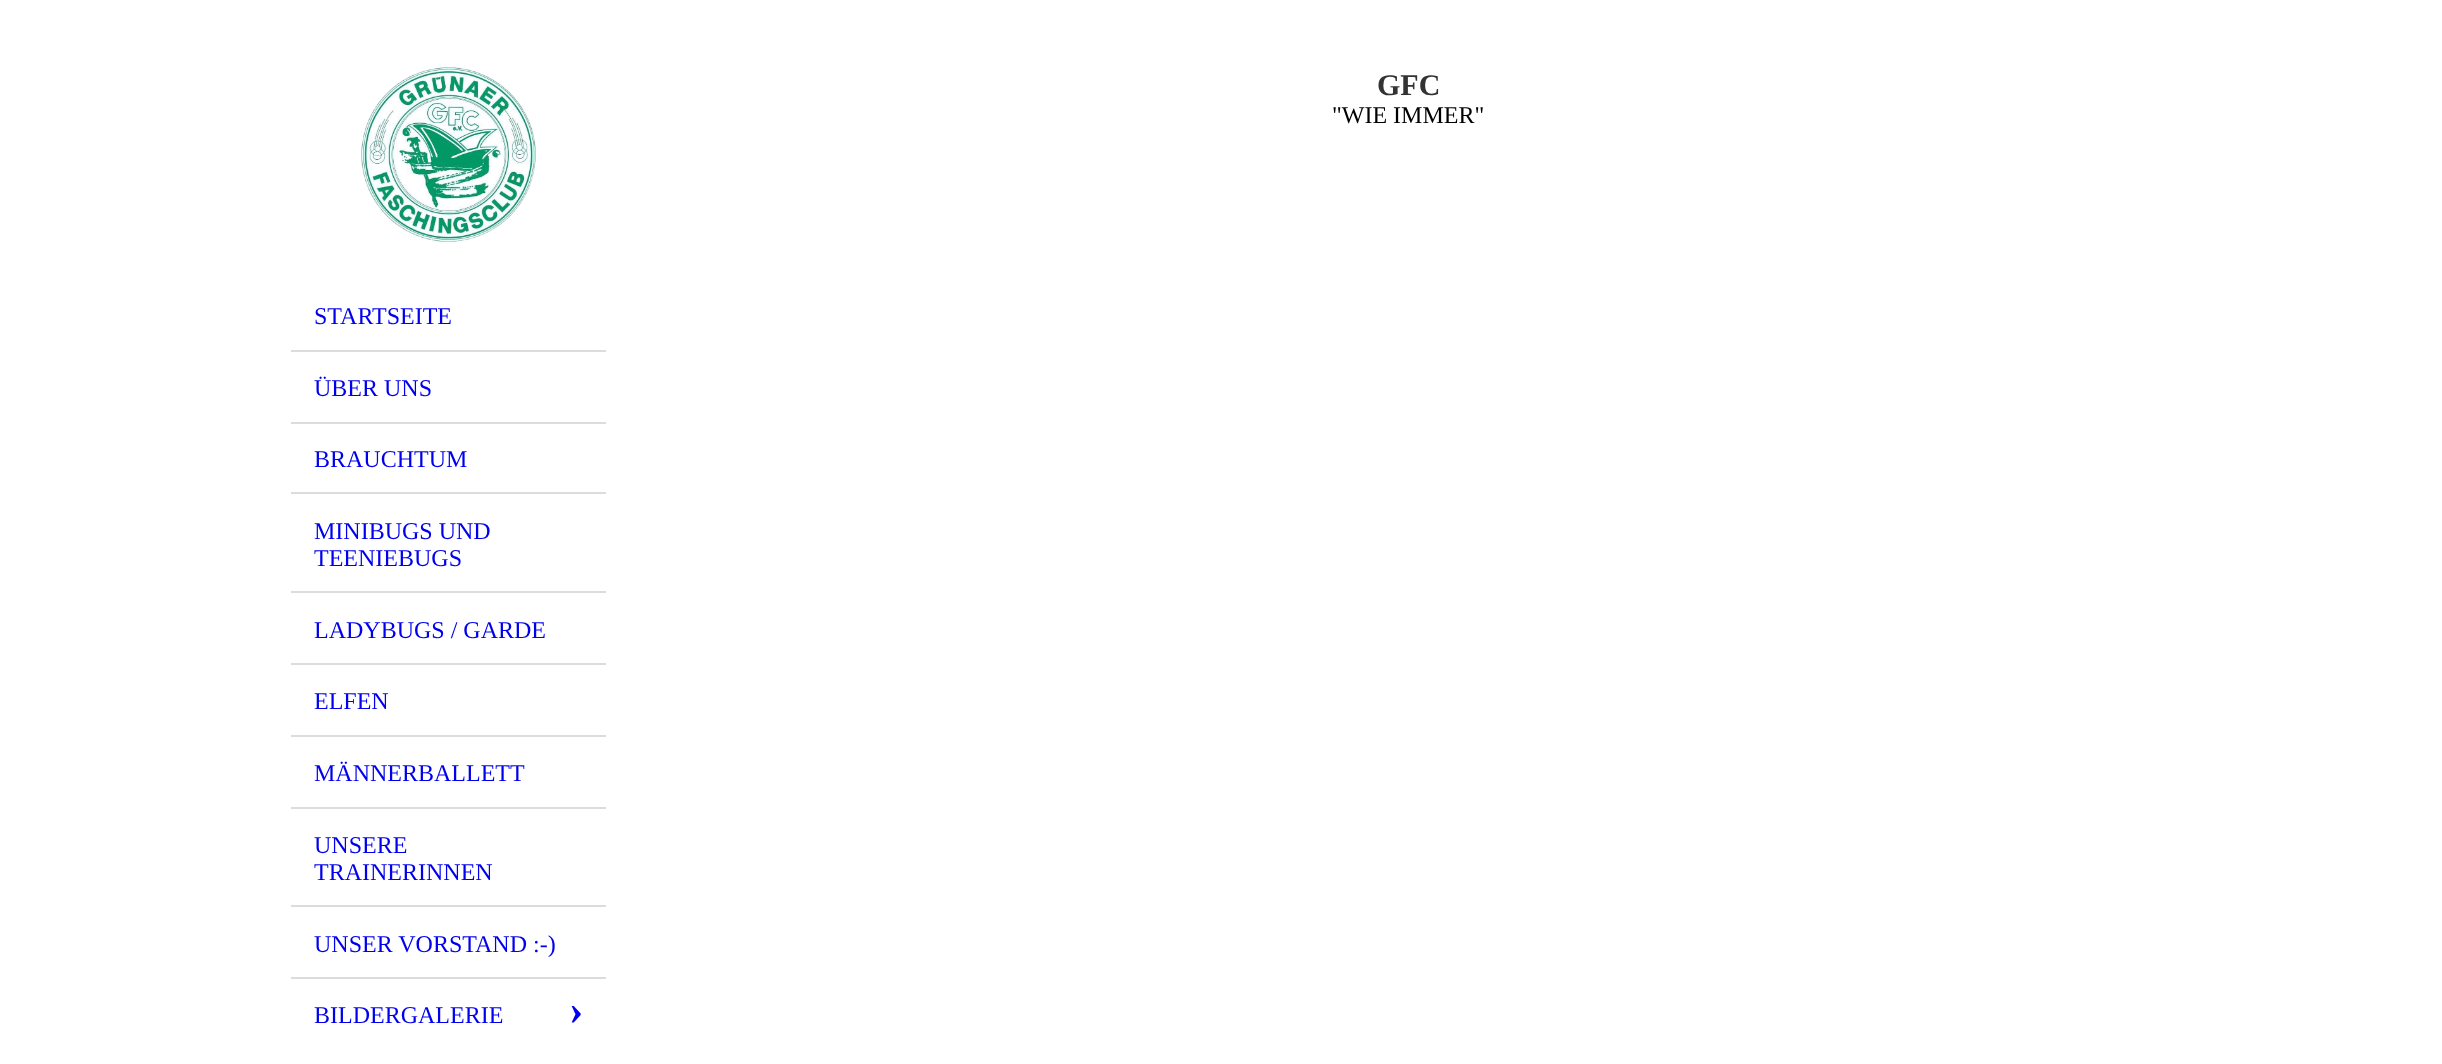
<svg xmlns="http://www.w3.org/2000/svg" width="2442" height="1064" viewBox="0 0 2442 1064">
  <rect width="100%" height="100%" fill="#fff"/>
  <image x="361" y="67" width="175" height="175" href="img/1.png"/>
  <path d="M291 350h315v2H291z" fill="#dcdcdc"/>
  <path d="M291 422h315v2H291z" fill="#dcdcdc"/>
  <path d="M291 492h315v2H291z" fill="#dcdcdc"/>
  <path d="M291 591h315v2H291z" fill="#dcdcdc"/>
  <path d="M291 663h315v2H291z" fill="#dcdcdc"/>
  <path d="M291 735h315v2H291z" fill="#dcdcdc"/>
  <path d="M291 807h315v2H291z" fill="#dcdcdc"/>
  <path d="M291 905h315v2H291z" fill="#dcdcdc"/>
  <path d="M291 977h315v2H291z" fill="#dcdcdc"/>
  <text x="1377" y="95" font-family="Liberation Serif" font-size="30" font-weight="bold" fill="#333">GFC</text>
  <text x="1332" y="123" font-family="Liberation Serif" font-size="24" fill="#000">"WIE IMMER"</text>
  <g font-family="Liberation Serif" font-size="24" fill="#00e">
    <text x="314" y="324">STARTSEITE</text>
    <text x="314" y="396">ÜBER UNS</text>
    <text x="314" y="467">BRAUCHTUM</text>
    <text x="314" y="539">MINIBUGS UND</text>
    <text x="314" y="566">TEENIEBUGS</text>
    <text x="314" y="638">LADYBUGS / GARDE</text>
    <text x="314" y="709">ELFEN</text>
    <text x="314" y="781">MÄNNERBALLETT</text>
    <text x="314" y="853">UNSERE</text>
    <text x="314" y="880">TRAINERINNEN</text>
    <text x="314" y="952">UNSER VORSTAND :-)</text>
    <text x="314" y="1023">BILDERGALERIE</text>
  </g>
  <text x="569" y="1024" font-family="Liberation Serif" font-size="43" font-weight="bold" fill="#00e">›</text>
</svg>
